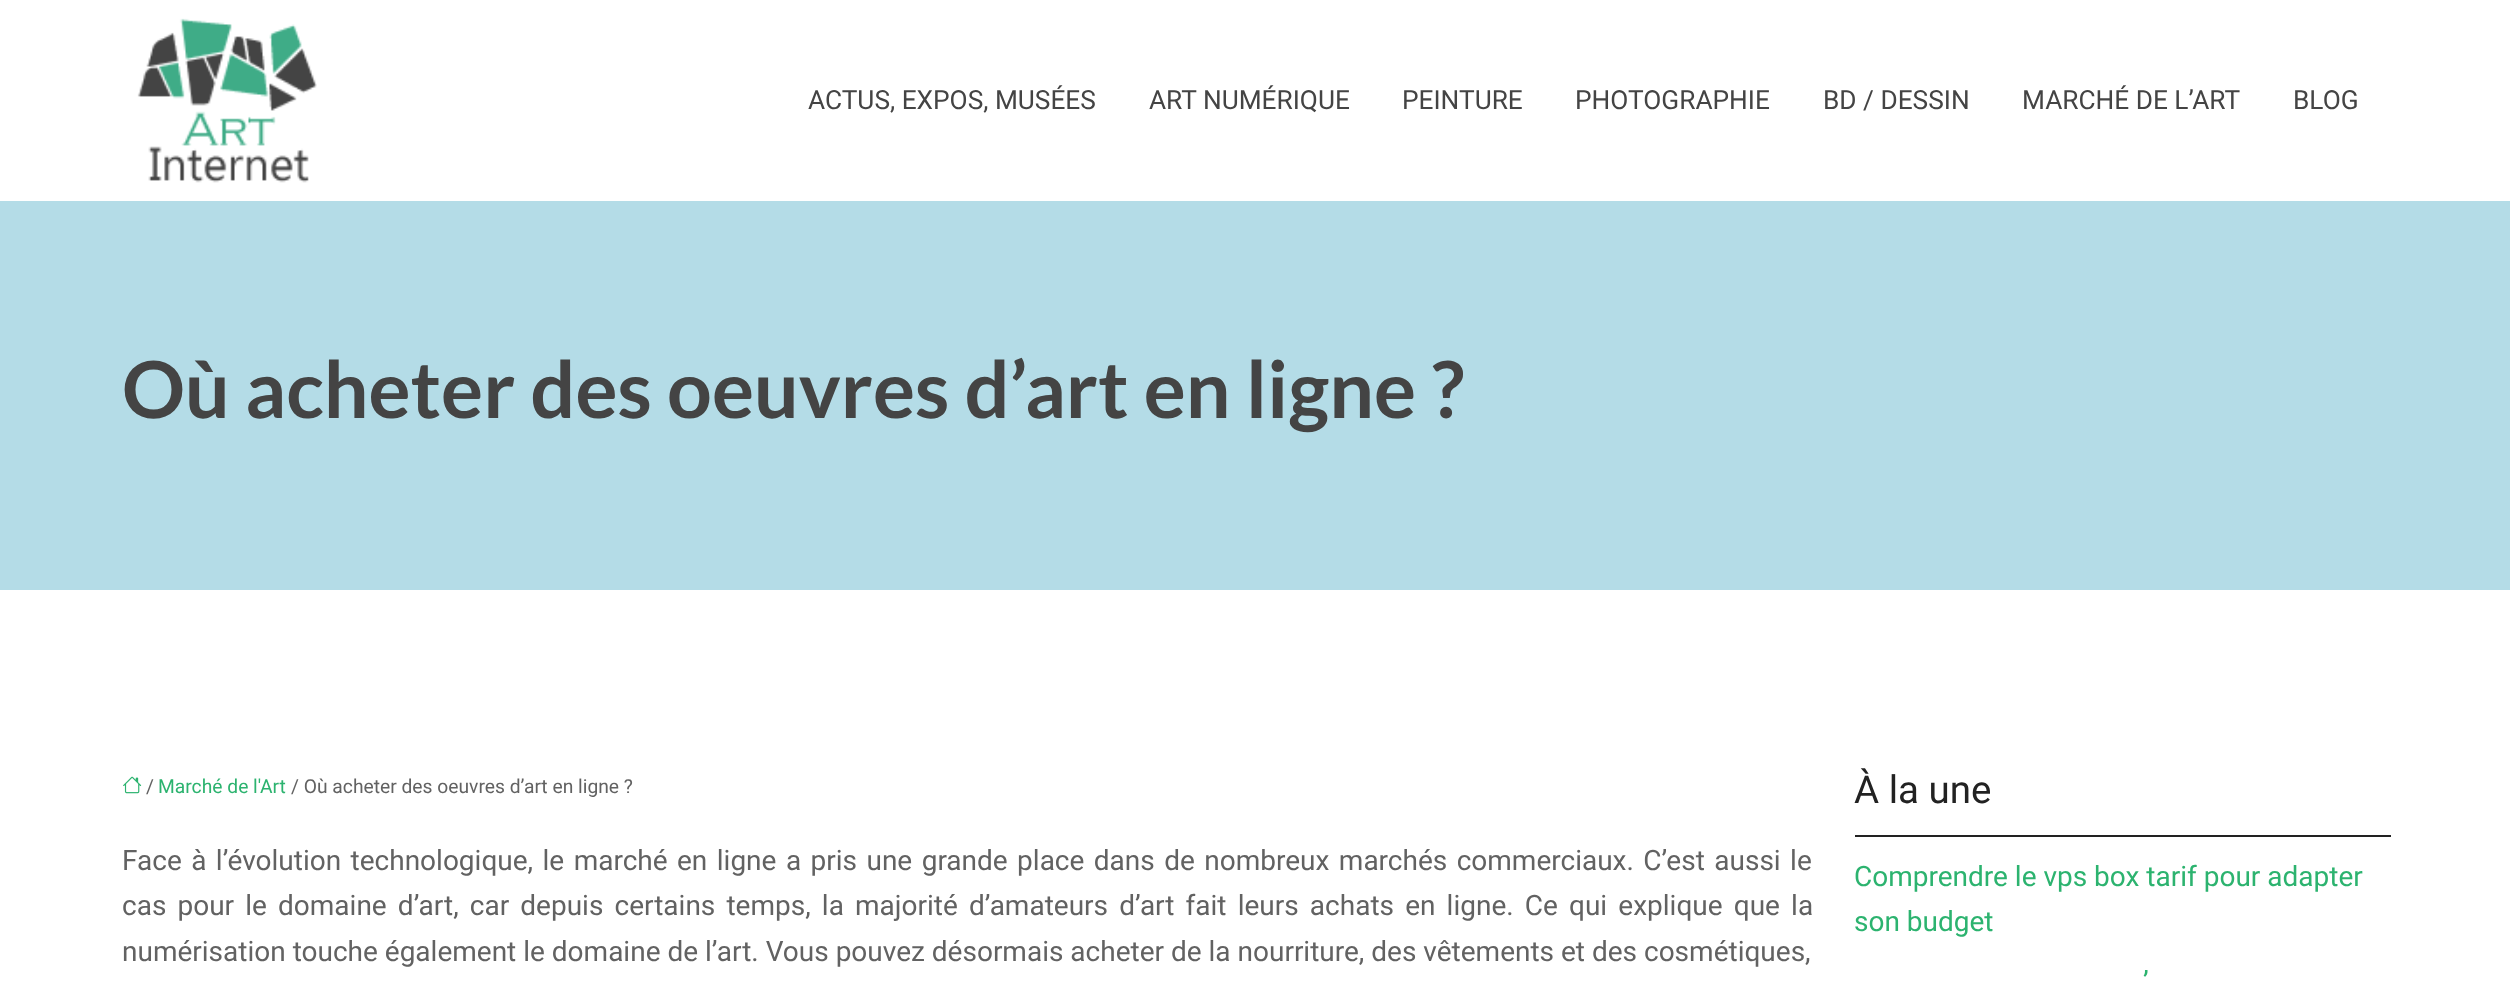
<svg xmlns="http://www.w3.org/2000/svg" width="2510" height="981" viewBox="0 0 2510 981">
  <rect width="100%" height="100%" fill="#fff"/>
  <image x="137" y="18" width="180" height="165" href="img/1.png"/>
  <path d="M0 201h2510v389H0z" fill="#b4dce7"/>
  <image x="123" y="776" width="19" height="18" href="img/2.png"/>
  <path d="M1855 835h536v2H1855z" fill="#222"/>
  <g font-family="Roboto" font-size="26.25" fill="#444">
    <text x="808" y="109">ACTUS, EXPOS, MUSÉES</text>
    <text x="1149" y="109">ART NUMÉRIQUE</text>
    <text x="1402" y="109">PEINTURE</text>
    <text x="1575" y="109">PHOTOGRAPHIE</text>
    <text x="1823" y="109">BD / DESSIN</text>
    <text x="2022" y="109">MARCHÉ DE L’ART</text>
    <text x="2293" y="109">BLOG</text>
  </g>
  <text x="122" y="418" font-family="Lato" font-size="78.75" font-weight="bold" fill="#444">Où acheter des oeuvres d’art en ligne ?</text>
  <text x="146" y="793" font-family="Roboto" font-size="19.25" fill="#626262">/</text>
  <text x="158" y="793" font-family="Roboto" font-size="19.25" fill="#2cb36f">Marché de l'Art</text>
  <text x="291" y="793" font-family="Roboto" font-size="19.25" fill="#626262">/ Où acheter des oeuvres d’art en ligne ?</text>
  <g font-family="Roboto" font-size="28" fill="#626262">
    <text x="122" y="870" word-spacing="2.5">Face à l’évolution technologique, le marché en ligne a pris une grande place dans de nombreux marchés commerciaux. C’est aussi le</text>
    <text x="122" y="915" word-spacing="4.2">cas pour le domaine d’art, car depuis certains temps, la majorité d’amateurs d’art fait leurs achats en ligne. Ce qui explique que la</text>
    <text x="122" y="961">numérisation touche également le domaine de l’art. Vous pouvez désormais acheter de la nourriture, des vêtements et des cosmétiques,</text>
  </g>
  <text x="1854" y="803" font-family="Roboto" font-size="38.5" fill="#222">À la une</text>
  <g font-family="Roboto" font-size="28" fill="#2cb36f">
    <text x="1854" y="886">Comprendre le vps box tarif pour adapter</text>
    <text x="1854" y="931">son budget</text>
    <text x="2143" y="991">’</text>
  </g>
</svg>
